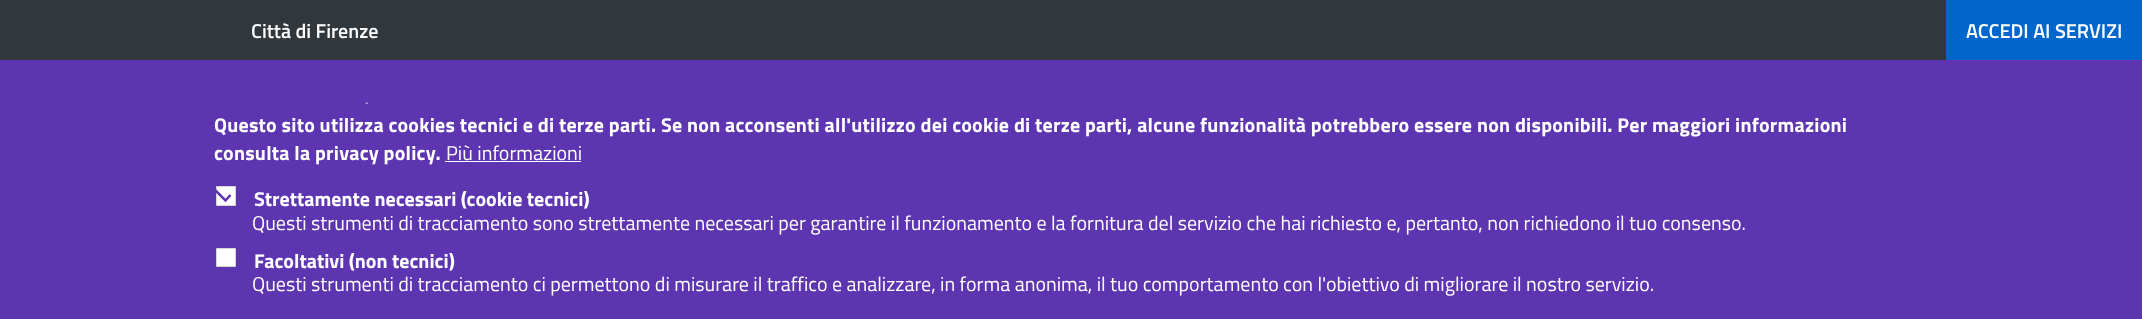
<svg xmlns="http://www.w3.org/2000/svg" width="2142" height="319" viewBox="0 0 2142 319">
  <rect width="100%" height="100%" fill="#5e35b1"/>
  <path d="M0 0h1946v60H0z" fill="#30373d"/>
  <path d="M1946 0h196v60H1946z" fill="#06c"/>
  <image x="365" y="101" width="4" height="3" href="img/1.png"/>
  <path d="M445 161h136v1H445z" fill="#fff"/>
  <path d="M216.5 186.5h19v19H216.5z" fill="#fff" stroke="#d6d6d6"/>
  <path d="M212.5 187.5L225.5 200.5L230.5 195" fill="none" stroke="#5e35b1" stroke-width="2.5"/>
  <path d="M216.5 248.5h19v18H216.5z" fill="#fff" stroke="#d6d6d6"/>
  <g font-family="Titillium Web" font-size="20" font-weight="600" fill="#fff">
    <text x="251" y="38">Città di Firenze</text>
    <text x="1966" y="38">ACCEDI AI SERVIZI</text>
  </g>
  <g font-family="Titillium Web" font-size="20" font-weight="bold" letter-spacing="0.22" fill="#fff">
    <text x="214" y="132">Questo sito utilizza cookies tecnici e di terze parti. Se non acconsenti all'utilizzo dei cookie di terze parti, alcune funzionalità potrebbero essere non disponibili. Per maggiori informazioni</text>
    <text x="214" y="160">consulta la privacy policy.</text>
  </g>
  <text x="446" y="160" font-family="Titillium Web" font-size="20" fill="#fff">Più informazioni</text>
  <text x="254" y="206" font-family="Titillium Web" font-size="20" font-weight="bold" fill="#fff">Strettamente necessari (cookie tecnici)</text>
  <text x="252" y="230" font-family="Titillium Web" font-size="20" fill="#fff">Questi strumenti di tracciamento sono strettamente necessari per garantire il funzionamento e la fornitura del servizio che hai richiesto e, pertanto, non richiedono il tuo consenso.</text>
  <text x="254" y="268" font-family="Titillium Web" font-size="20" font-weight="bold" fill="#fff">Facoltativi (non tecnici)</text>
  <text x="252" y="291" font-family="Titillium Web" font-size="20" fill="#fff">Questi strumenti di tracciamento ci permettono di misurare il traffico e analizzare, in forma anonima, il tuo comportamento con l'obiettivo di migliorare il nostro servizio.</text>
</svg>
